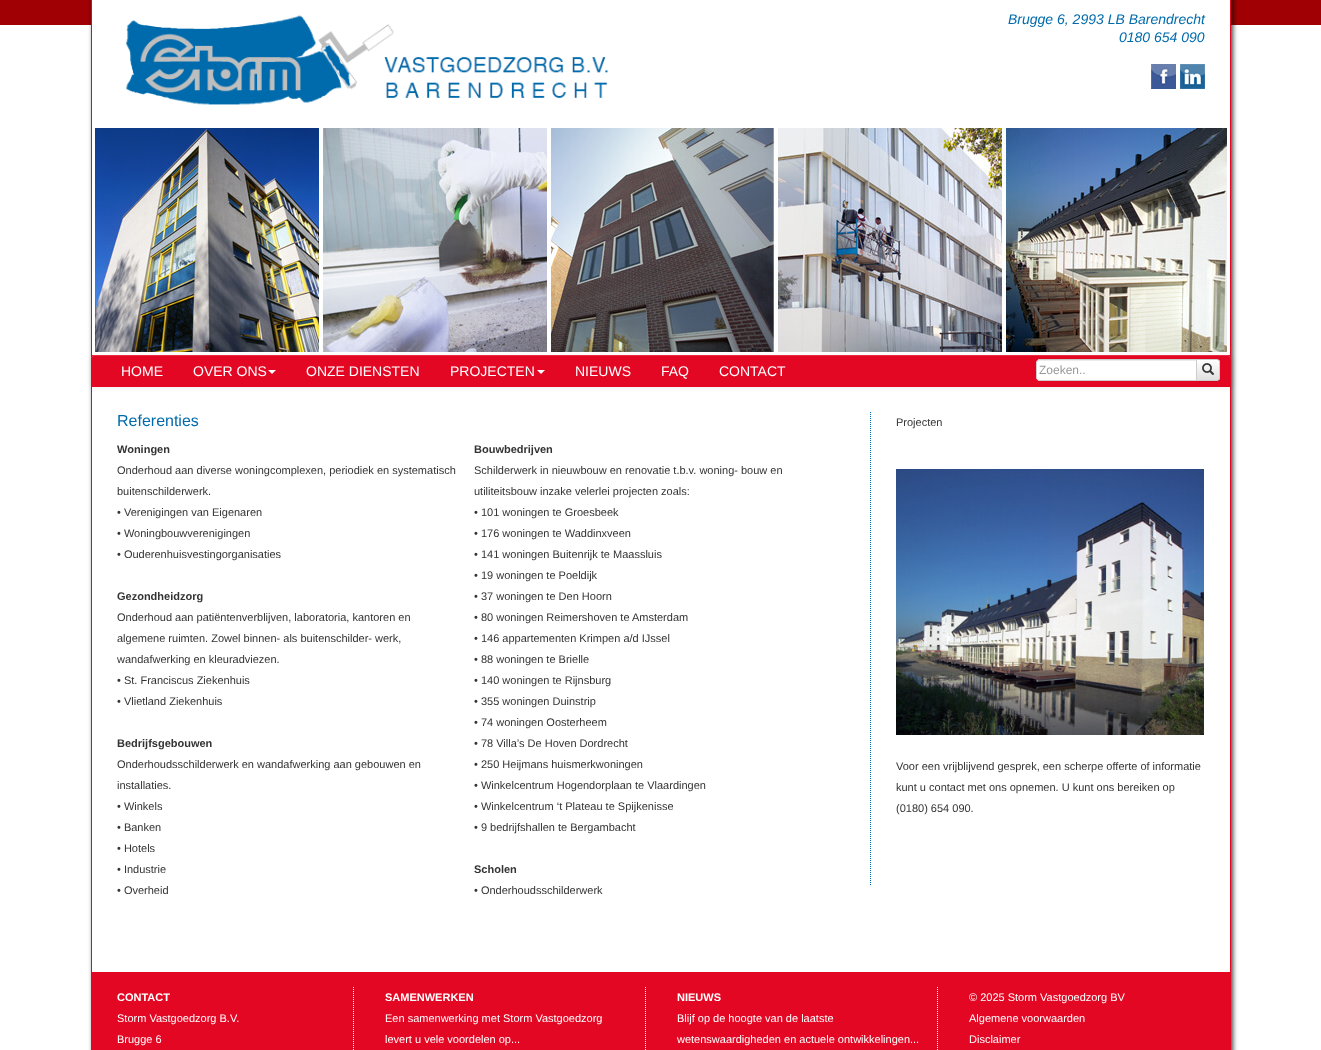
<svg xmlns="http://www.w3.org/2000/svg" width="1321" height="1050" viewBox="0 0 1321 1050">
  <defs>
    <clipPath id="clip1"><path d="M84 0H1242V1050H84ZM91-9H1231V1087H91Z" clip-rule="evenodd"/></clipPath>
    <clipPath id="clip2"><path d="M1196 359H1217C1218.5 359 1220 360.5 1220 362V378C1220 379.5 1218.5 381 1217 381H1196Z"/></clipPath>
    <linearGradient id="g1" gradientUnits="userSpaceOnUse" x1="1208" y1="360" x2="1208" y2="380"><stop offset="0" stop-color="#fff"/><stop offset="1" stop-color="#e0e0e0"/></linearGradient>
  </defs>
  <rect width="100%" height="100%" fill="#fff"/>
  <path d="M0 0h1321v25H0z" fill="#a00004"/>
  <g clip-path="url(#clip1)">
    <path d="M93 -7h1140v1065H93z" fill="#000000bf" filter="blur(2.5px)"/>
  </g>
  <path d="M92 0h1138v25H92z" fill="#fff"/>
  <path d="M1230 0h1v355H1230z" fill="#e30723"/>
  <path d="M91 0h1v355H91z" fill="#e30723"/>
  <image x="126" y="15" width="482" height="90" href="img/1.png"/>
  <image x="1151" y="64" width="25" height="25" href="img/2.png"/>
  <image x="1180" y="64" width="25" height="25" href="img/3.png"/>
  <image x="95" y="128" width="1132" height="224" href="img/4.png"/>
  <path d="M91 355h1140v32H91z" fill="#e30723"/>
  <path d="M1230 387h1v585H1230z" fill="#e30723"/>
  <path d="M91 387h1v585H91z" fill="#e30723"/>
  <rect x="91" y="356" width="1140" height="32" rx="4" fill="#00000012" filter="blur(2.5px)"/>
  <rect x="91" y="355" width="1140" height="32" rx="4" fill="#e30723"/>
  <path d="M95 356H1227C1229 356 1231 358 1231 360C1231 357 1230 355 1227 355H95C92 355 91 357 91 360C91 358 93 356 95 356Z" fill="#e72c44"/>
  <path d="M268 370H276L272 374Z" fill="#fff"/>
  <path d="M537 370H545L541 374Z" fill="#fff"/>
  <path d="M1040 359H1197V381H1040C1038 381 1036 379 1036 377V363C1036 361 1038 359 1040 359Z" fill="#fff"/>
  <path d="M1040 361H1196V360H1040C1038 360 1037 361 1037 363C1037 362 1038 361 1040 361Z" fill="#ececec"/>
  <path d="M1040 359.5H1196.5V380.5H1040C1038 380.5 1036.5 379 1036.5 377V363C1036.5 361 1038 359.5 1040 359.5Z" fill="none" stroke="#ccc"/>
  <rect x="1196" y="360" width="24" height="22" rx="3" fill="#00000012" filter="blur(0.5px)"/>
  <g clip-path="url(#clip2)">
    <path d="M1197 360h23v20H1197z" fill="url(#g1)"/>
  </g>
  <path d="M1196.5 359.5H1217C1218.5 359.5 1219.5 360.5 1219.5 362V378C1219.5 379.5 1218.5 380.5 1217 380.5H1196.5Z" fill="none" stroke="#ccc"/>
  <image x="1202" y="363" width="12" height="12" href="img/5.png"/>
  <path d="M870.5 412V886" fill="none" stroke="#006bac" stroke-dasharray="1 1"/>
  <image x="896" y="469" width="308" height="266" href="img/6.png"/>
  <path d="M91 972h1140v78H91z" fill="#e30723"/>
  <path d="M353.5 987V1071" fill="none" stroke="#fff" stroke-dasharray="1 1"/>
  <path d="M645.5 987V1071" fill="none" stroke="#fff" stroke-dasharray="1 1"/>
  <path d="M937.5 987V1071" fill="none" stroke="#fff" stroke-dasharray="1 1"/>
  <g font-family="Liberation Sans" font-size="14" font-style="italic" fill="#006bac">
    <text x="1008" y="24">Brugge 6, 2993 LB Barendrecht</text>
    <text x="1119" y="42">0180 654 090</text>
  </g>
  <g font-family="Liberation Sans" font-size="14" fill="#fff">
    <text x="121" y="376">HOME</text>
    <text x="193" y="376">OVER ONS</text>
    <text x="306" y="376">ONZE DIENSTEN</text>
    <text x="450" y="376">PROJECTEN</text>
    <text x="575" y="376">NIEUWS</text>
    <text x="661" y="376">FAQ</text>
    <text x="719" y="376">CONTACT</text>
  </g>
  <text x="1039" y="374" font-family="Liberation Sans" font-size="12" fill="#999">Zoeken..</text>
  <text x="117" y="426" font-family="Liberation Sans" font-size="16" fill="#006bac">Referenties</text>
  <text x="117" y="453" font-family="Liberation Sans" font-size="11" font-weight="bold" fill="#333">Woningen</text>
  <g font-family="Liberation Sans" font-size="11" fill="#333">
    <text x="117" y="474">Onderhoud aan diverse woningcomplexen, periodiek en systematisch</text>
    <text x="117" y="495">buitenschilderwerk.</text>
    <text x="117" y="516">• Verenigingen van Eigenaren</text>
    <text x="117" y="537">• Woningbouwverenigingen</text>
    <text x="117" y="558">• Ouderenhuisvestingorganisaties</text>
  </g>
  <text x="117" y="600" font-family="Liberation Sans" font-size="11" font-weight="bold" fill="#333">Gezondheidzorg</text>
  <g font-family="Liberation Sans" font-size="11" fill="#333">
    <text x="117" y="621">Onderhoud aan patiëntenverblijven, laboratoria, kantoren en</text>
    <text x="117" y="642">algemene ruimten. Zowel binnen- als buitenschilder- werk,</text>
    <text x="117" y="663">wandafwerking en kleuradviezen.</text>
    <text x="117" y="684">• St. Franciscus Ziekenhuis</text>
    <text x="117" y="705">• Vlietland Ziekenhuis</text>
  </g>
  <text x="117" y="747" font-family="Liberation Sans" font-size="11" font-weight="bold" fill="#333">Bedrijfsgebouwen</text>
  <g font-family="Liberation Sans" font-size="11" fill="#333">
    <text x="117" y="768">Onderhoudsschilderwerk en wandafwerking aan gebouwen en</text>
    <text x="117" y="789">installaties.</text>
    <text x="117" y="810">• Winkels</text>
    <text x="117" y="831">• Banken</text>
    <text x="117" y="852">• Hotels</text>
    <text x="117" y="873">• Industrie</text>
    <text x="117" y="894">• Overheid</text>
  </g>
  <text x="474" y="453" font-family="Liberation Sans" font-size="11" font-weight="bold" fill="#333">Bouwbedrijven</text>
  <g font-family="Liberation Sans" font-size="11" fill="#333">
    <text x="474" y="474">Schilderwerk in nieuwbouw en renovatie t.b.v. woning- bouw en</text>
    <text x="474" y="495">utiliteitsbouw inzake velerlei projecten zoals:</text>
    <text x="474" y="516">• 101 woningen te Groesbeek</text>
    <text x="474" y="537">• 176 woningen te Waddinxveen</text>
    <text x="474" y="558">• 141 woningen Buitenrijk te Maassluis</text>
    <text x="474" y="579">• 19 woningen te Poeldijk</text>
    <text x="474" y="600">• 37 woningen te Den Hoorn</text>
    <text x="474" y="621">• 80 woningen Reimershoven te Amsterdam</text>
    <text x="474" y="642">• 146 appartementen Krimpen a/d IJssel</text>
    <text x="474" y="663">• 88 woningen te Brielle</text>
    <text x="474" y="684">• 140 woningen te Rijnsburg</text>
    <text x="474" y="705">• 355 woningen Duinstrip</text>
    <text x="474" y="726">• 74 woningen Oosterheem</text>
    <text x="474" y="747">• 78 Villa’s De Hoven Dordrecht</text>
    <text x="474" y="768">• 250 Heijmans huismerkwoningen</text>
    <text x="474" y="789">• Winkelcentrum Hogendorplaan te Vlaardingen</text>
    <text x="474" y="810">• Winkelcentrum ‘t Plateau te Spijkenisse</text>
    <text x="474" y="831">• 9 bedrijfshallen te Bergambacht</text>
  </g>
  <text x="474" y="873" font-family="Liberation Sans" font-size="11" font-weight="bold" fill="#333">Scholen</text>
  <g font-family="Liberation Sans" font-size="11" fill="#333">
    <text x="474" y="894">• Onderhoudsschilderwerk</text>
    <text x="896" y="426">Projecten</text>
    <text x="896" y="770">Voor een vrijblijvend gesprek, een scherpe offerte of informatie</text>
    <text x="896" y="791">kunt u contact met ons opnemen. U kunt ons bereiken op</text>
    <text x="896" y="812">(0180) 654 090.</text>
  </g>
  <text x="117" y="1001" font-family="Liberation Sans" font-size="11" font-weight="bold" fill="#fff">CONTACT</text>
  <g font-family="Liberation Sans" font-size="11" fill="#fff">
    <text x="117" y="1022">Storm Vastgoedzorg B.V.</text>
    <text x="117" y="1043">Brugge 6</text>
  </g>
  <text x="385" y="1001" font-family="Liberation Sans" font-size="11" font-weight="bold" fill="#fff">SAMENWERKEN</text>
  <g font-family="Liberation Sans" font-size="11" fill="#fff">
    <text x="385" y="1022">Een samenwerking met Storm Vastgoedzorg</text>
    <text x="385" y="1043">levert u vele voordelen op...</text>
  </g>
  <text x="677" y="1001" font-family="Liberation Sans" font-size="11" font-weight="bold" fill="#fff">NIEUWS</text>
  <g font-family="Liberation Sans" font-size="11" fill="#fff">
    <text x="677" y="1022">Blijf op de hoogte van de laatste</text>
    <text x="677" y="1043">wetenswaardigheden en actuele ontwikkelingen...</text>
    <text x="969" y="1001">© 2025 Storm Vastgoedzorg BV</text>
    <text x="969" y="1022">Algemene voorwaarden</text>
    <text x="969" y="1043">Disclaimer</text>
  </g>
</svg>
